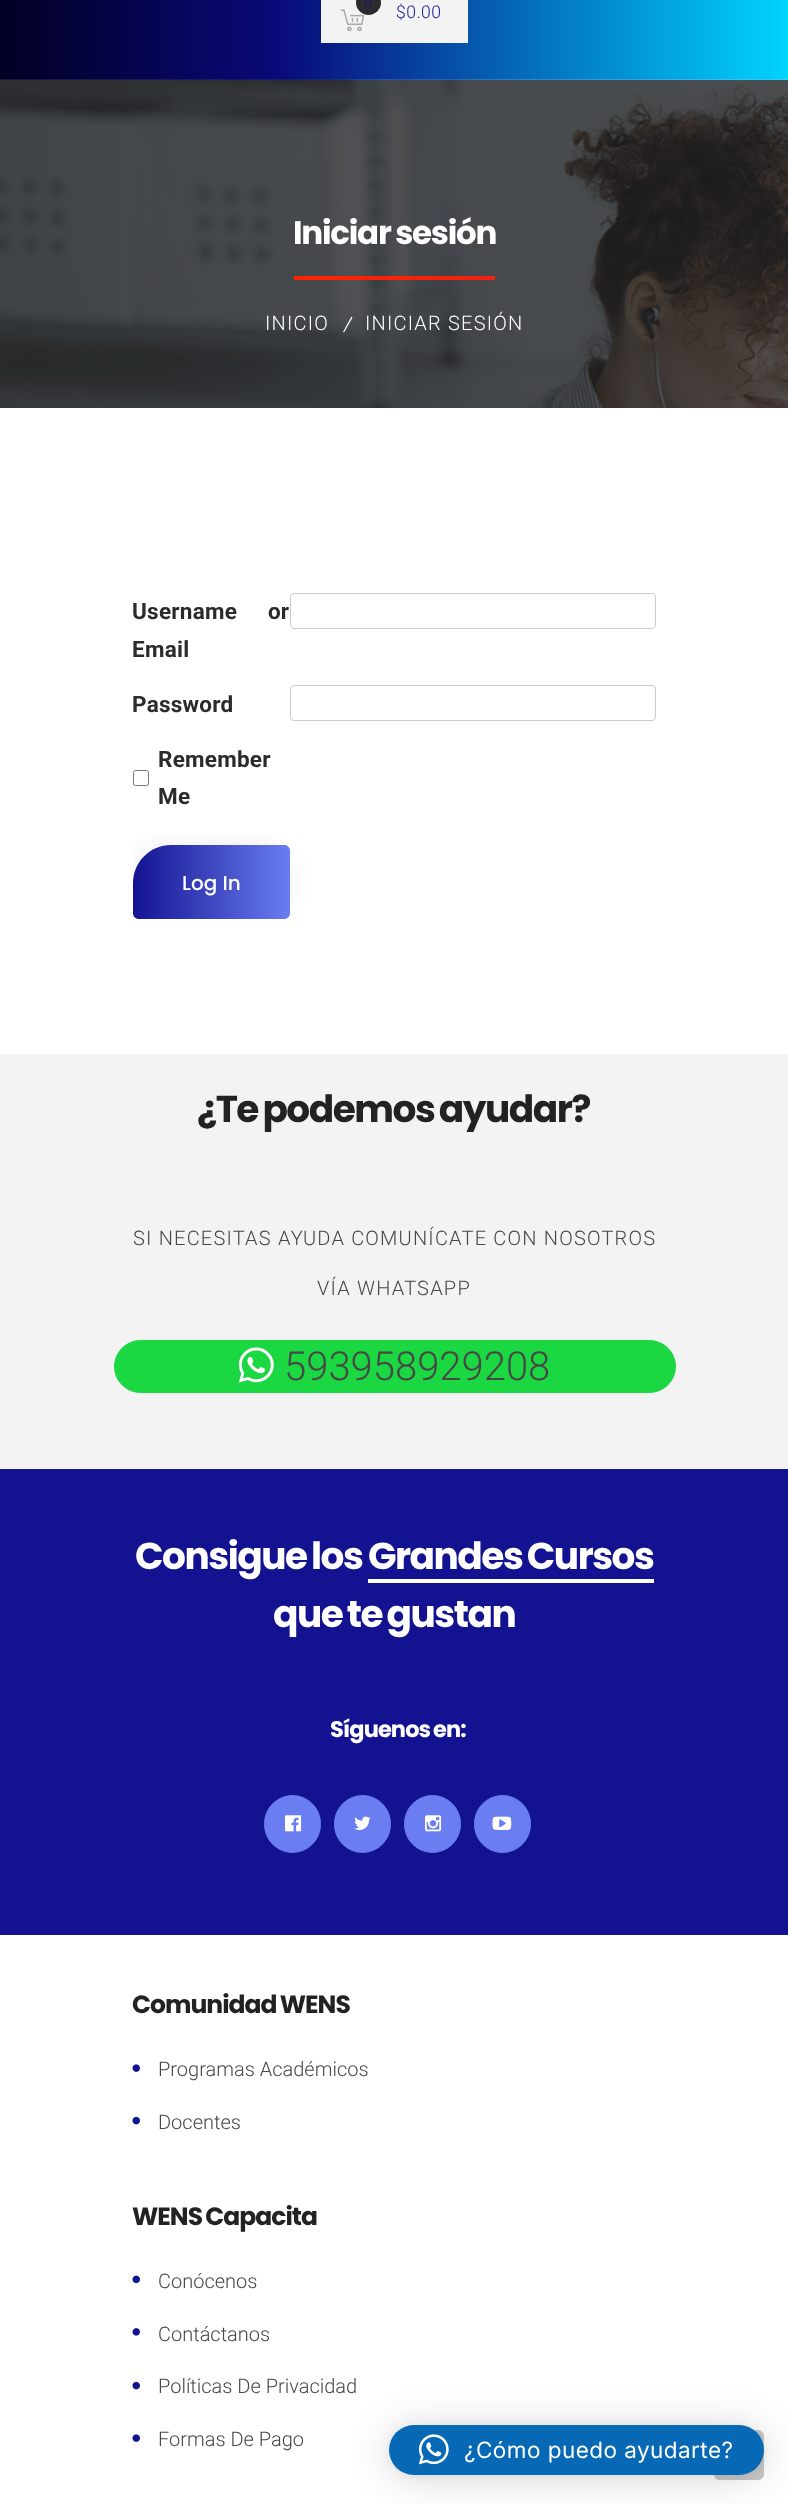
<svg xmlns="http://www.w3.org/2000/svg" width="788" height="2504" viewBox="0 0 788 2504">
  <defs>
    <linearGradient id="g1" gradientUnits="userSpaceOnUse" x1="0" y1="-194" x2="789" y2="-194"><stop offset="0" stop-color="#020024"/><stop offset="0.35" stop-color="#090979"/><stop offset="1" stop-color="#00d4ff"/></linearGradient>
    <linearGradient id="g2" gradientUnits="userSpaceOnUse" x1="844" y1="-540" x2="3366" y2="1160"><stop offset="0" stop-color="#ff2400"/><stop offset="0.12" stop-color="#e81d1d"/><stop offset="0.25" stop-color="#e8b71d"/><stop offset="0.38" stop-color="#e3e81d"/><stop offset="0.5" stop-color="#1de840"/><stop offset="0.62" stop-color="#1ddde8"/><stop offset="0.75" stop-color="#2b1de8"/><stop offset="0.88" stop-color="#dd00f3"/><stop offset="1" stop-color="#dd00f3"/></linearGradient>
    <clipPath id="clip1"><path d="M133 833h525v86H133z"/></clipPath>
    <linearGradient id="g3" gradientUnits="userSpaceOnUse" x1="133" y1="882" x2="290" y2="882"><stop offset="0" stop-color="#131391"/><stop offset="1" stop-color="#6a7df1"/></linearGradient>
  </defs>
  <rect width="100%" height="100%" fill="#fff"/>
  <path d="M0 0h788v80H0z" fill="url(#g1)"/>
  <path d="M321 0h147v43H321z" fill="#f3f3f3"/>
  <image x="340" y="9" width="25" height="23" href="img/1.png"/>
  <circle cx="368.5" cy="2.5" r="12.5" fill="#2b2b2b"/>
  <path d="M0 80h788v328H0z" fill="#222"/>
  <image x="0" y="79" width="788" height="329" href="img/2.png"/>
  <path d="M294 276h201v4H294z" fill="url(#g2)"/>
  <path d="M351.5 316.5L352.5 317.5L344 332.5L343 332Z" fill="#fff"/>
  <rect x="290.5" y="593.5" width="365" height="35" rx="3.5" fill="none" stroke="#ccc"/>
  <rect x="290.5" y="685.5" width="365" height="35" rx="3.5" fill="none" stroke="#ccc"/>
  <rect x="133.5" y="770.5" width="15" height="15" rx="2" fill="none" stroke="#767676"/>
  <g clip-path="url(#clip1)">
    <rect x="133" y="845" width="157" height="74" rx="38" fill="#00000012" filter="blur(12.5px)"/>
  </g>
  <path d="M171 845H284C287.5 845 290 847.5 290 851V913C290 916.5 287.5 919 284 919H139C135.5 919 133 916.5 133 913V883C133 862 150 845 171 845Z" fill="url(#g3)"/>
  <path d="M0 1054h788v415H0z" fill="#f3f3f3"/>
  <rect x="114.5" y="1340.5" width="561" height="52" rx="26" fill="#1bd741" stroke="#1bd741"/>
  <image x="238" y="1347" width="36" height="36" href="img/3.png"/>
  <path d="M0 1469h788v466H0z" fill="#131391"/>
  <path d="M368 1579h286v4H368z" fill="#fff"/>
  <rect x="264.5" y="1795.5" width="56" height="57" rx="28" fill="#6a7df1" stroke="#6a7df1"/>
  <image x="285" y="1815" width="17" height="17" href="img/4.png"/>
  <rect x="334.5" y="1795.5" width="56" height="57" rx="28" fill="#6a7df1" stroke="#6a7df1"/>
  <image x="354" y="1816" width="17" height="14" href="img/5.png"/>
  <rect x="404.5" y="1795.5" width="56" height="57" rx="28" fill="#6a7df1" stroke="#6a7df1"/>
  <image x="425" y="1815" width="17" height="17" href="img/6.png"/>
  <rect x="474.5" y="1795.5" width="56" height="57" rx="28" fill="#6a7df1" stroke="#6a7df1"/>
  <image x="492" y="1816" width="20" height="14" href="img/7.png"/>
  <image x="132" y="2064" width="8" height="8" href="img/8.png"/>
  <image x="132" y="2116" width="8" height="9" href="img/9.png"/>
  <image x="132" y="2275" width="8" height="9" href="img/10.png"/>
  <image x="132" y="2328" width="8" height="8" href="img/11.png"/>
  <image x="132" y="2381" width="8" height="9" href="img/9.png"/>
  <image x="132" y="2434" width="8" height="8" href="img/8.png"/>
  <path d="M733 2430H758C761.5 2430 764 2432.5 764 2436V2474C764 2477.5 761.5 2480 758 2480H720C716.5 2480 714 2477.5 714 2474V2449C714 2438.5 722.5 2430 733 2430Z" fill="#cacaca"/>
  <rect x="389" y="2428" width="375" height="50" rx="25" fill="#00000029" filter="blur(20px)"/>
  <rect x="389" y="2426" width="375" height="50" rx="25" fill="#0000000f" filter="blur(4px)"/>
  <rect x="389" y="2425" width="375" height="50" rx="25" fill="#0769b5"/>
  <image x="418" y="2434" width="31" height="31" href="img/12.png"/>
  <text x="364" y="8" font-family="Roboto" font-size="15" font-weight="300" letter-spacing="0.45" fill="#131391">0</text>
  <text x="396" y="18" font-family="Roboto" font-size="17.5" font-weight="300" letter-spacing="0.5" fill="#131391">$0.00</text>
  <text x="293" y="244" word-spacing="-1" font-family="Poppins" font-size="32.5" font-weight="bold" letter-spacing="-1.25" fill="#fff">Iniciar sesión</text>
  <g font-family="Roboto" font-size="20" font-weight="300" letter-spacing="1.2" fill="#fff">
    <text x="265" y="330">INICIO</text>
    <text x="365" y="330">INICIAR SESIÓN</text>
  </g>
  <g font-family="Roboto" font-size="22.5" font-weight="bold" letter-spacing="0.25" fill="#2b2b2b">
    <text x="132" y="619" word-spacing="25">Username or</text>
    <text x="132" y="657">Email</text>
    <text x="132" y="712">Password</text>
    <text x="158" y="767">Remember</text>
    <text x="158" y="804">Me</text>
  </g>
  <text x="182" y="890" font-family="Poppins" font-size="20" font-weight="500" fill="#fff">Log In</text>
  <text x="197" y="1122" word-spacing="-2" font-family="Poppins" font-size="37.5" font-weight="bold" letter-spacing="-1.5" fill="#222">¿Te podemos ayudar?</text>
  <g font-family="Roboto" font-size="20" font-weight="300" letter-spacing="1.2" fill="#474747">
    <text x="133" y="1245">SI NECESITAS AYUDA COMUNÍCATE CON NOSOTROS</text>
    <text x="317" y="1295">VÍA WHATSAPP</text>
  </g>
  <text x="284" y="1380" font-family="Roboto" font-size="40" font-weight="300" fill="#474747">593958929208</text>
  <g font-family="Poppins" font-size="37.5" font-weight="bold" letter-spacing="-1.5" fill="#fff">
    <text x="135" y="1569" word-spacing="-2">Consigue los</text>
    <text x="368" y="1569" word-spacing="-2">Grandes Cursos</text>
    <text x="273" y="1627" word-spacing="-2">que te gustan</text>
  </g>
  <text x="330" y="1737" word-spacing="-1" font-family="Poppins" font-size="22.5" font-weight="bold" letter-spacing="-0.9" fill="#fff">Síguenos en:</text>
  <text x="132" y="2013" word-spacing="-1" font-family="Poppins" font-size="25" font-weight="bold" letter-spacing="-1" fill="#222">Comunidad WENS</text>
  <g font-family="Roboto" font-size="20" font-weight="300" fill="#474747">
    <text x="158" y="2076">Programas Académicos</text>
    <text x="158" y="2129">Docentes</text>
  </g>
  <text x="132" y="2225" word-spacing="-1" font-family="Poppins" font-size="25" font-weight="bold" letter-spacing="-1" fill="#222">WENS Capacita</text>
  <g font-family="Roboto" font-size="20" font-weight="300" fill="#474747">
    <text x="158" y="2288">Conócenos</text>
    <text x="158" y="2341">Contáctanos</text>
    <text x="158" y="2393">Políticas De Privacidad</text>
    <text x="158" y="2446">Formas De Pago</text>
  </g>
  <text x="464" y="2458" font-family="Inter" font-size="22.5" letter-spacing="0.45" fill="#fff">¿Cómo puedo ayudarte?</text>
</svg>
